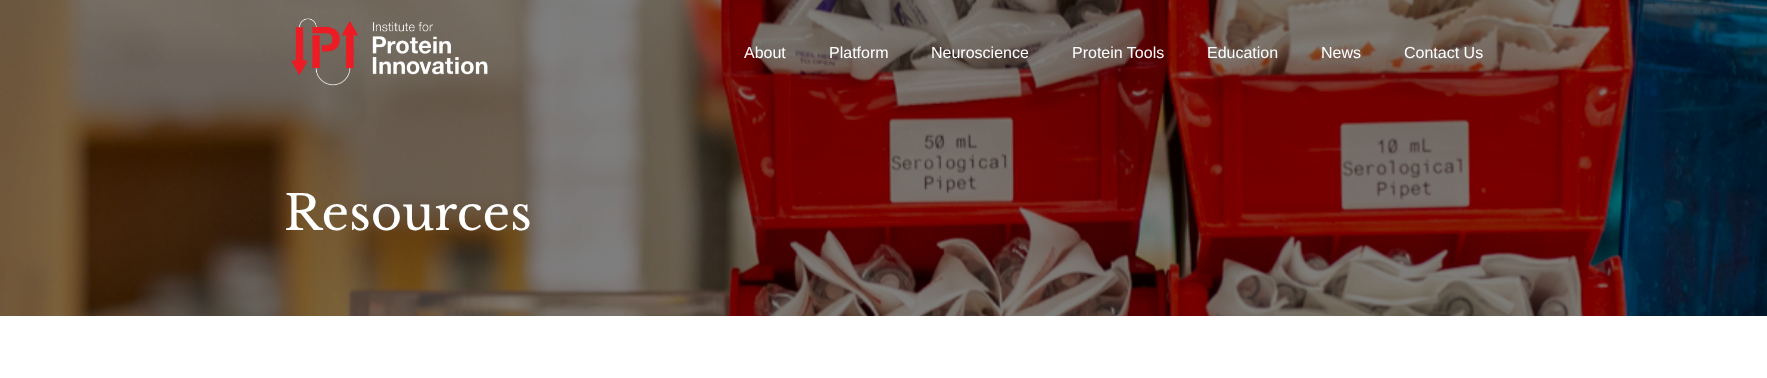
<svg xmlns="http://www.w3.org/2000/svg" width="1767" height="378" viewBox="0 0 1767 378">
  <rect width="100%" height="100%" fill="#fff"/>
  <image x="0" y="0" width="1767" height="316" href="img/2.png"/>
  <image x="291" y="18" width="197" height="68" href="img/1.png"/>
  <g font-family="Liberation Sans" font-size="16" fill="#fff">
    <text x="744" y="58">About</text>
    <text x="829" y="58">Platform</text>
    <text x="931" y="58">Neuroscience</text>
    <text x="1072" y="58">Protein Tools</text>
    <text x="1207" y="58">Education</text>
    <text x="1321" y="58">News</text>
    <text x="1404" y="58">Contact Us</text>
  </g>
  <text x="284" y="230" font-family="Libre Baskerville" font-size="48" fill="#fff">Resources</text>
</svg>
